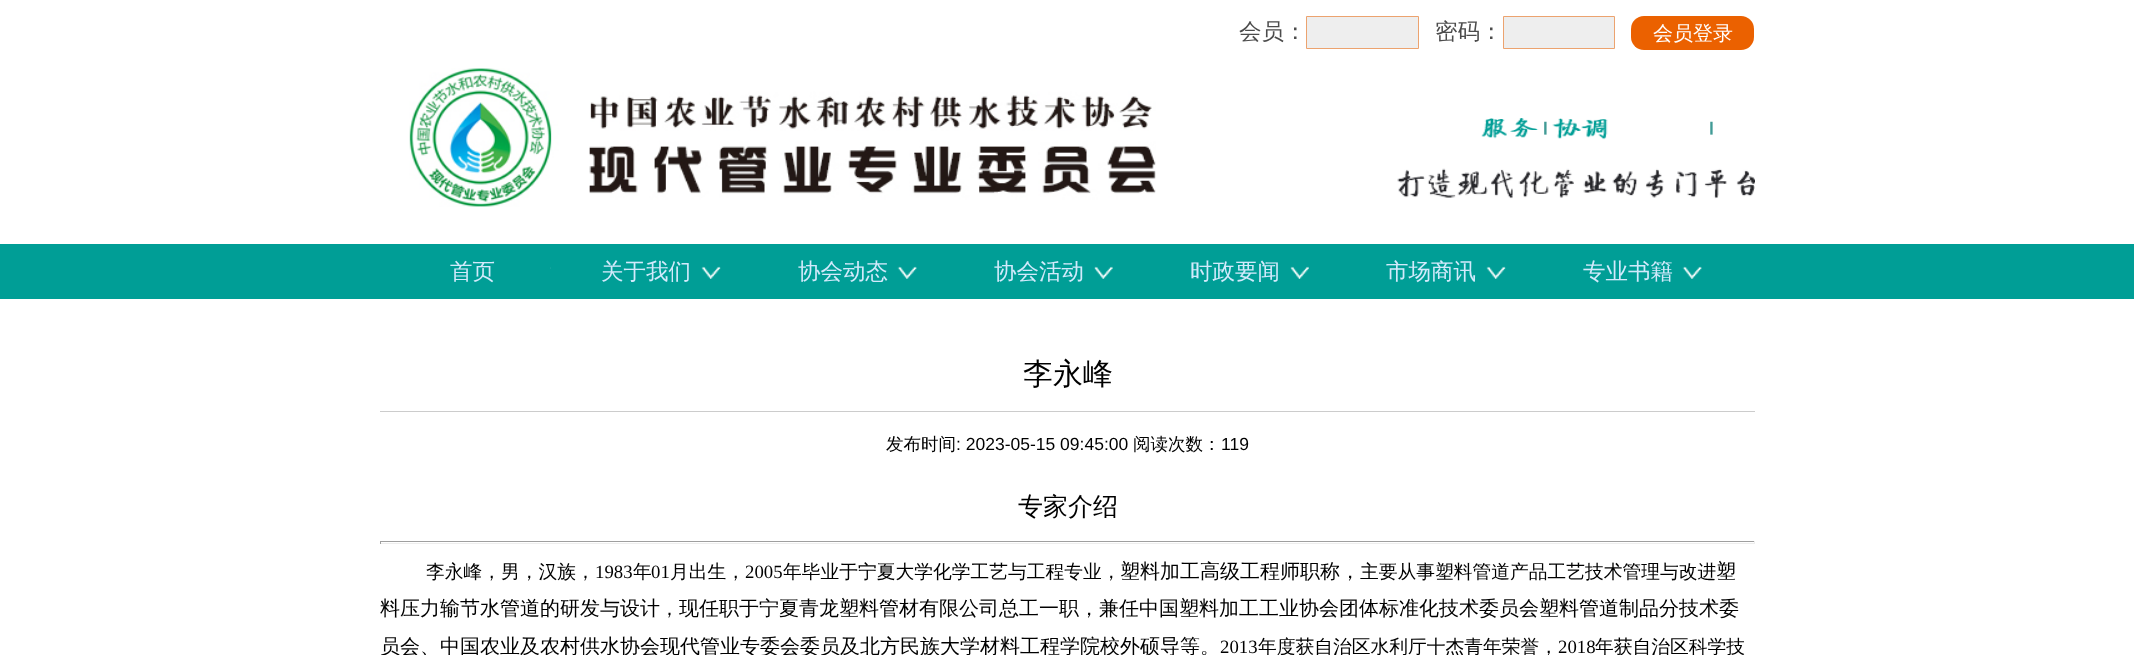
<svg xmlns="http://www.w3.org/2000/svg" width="2134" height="655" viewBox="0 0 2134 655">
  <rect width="100%" height="100%" fill="#fff"/>
  <path d="M1306.5 16.5h112v32H1306.5z" fill="#eee" stroke="#eca36f"/>
  <path d="M1503.5 16.5h111v32H1503.5z" fill="#eee" stroke="#eca36f"/>
  <rect x="1631" y="16" width="123" height="34" rx="13" fill="#eb6100"/>
  <image x="1481" y="118" width="232" height="22" href="img/1.png"/>
  <image x="1397" y="168" width="358" height="31" href="img/2.png"/>
  <image x="409" y="68" width="747" height="139" href="img/3.png"/>
  <path d="M0 244h2134v55H0z" fill="#009e96"/>
  <image x="550" y="267" width="1" height="2" href="img/4.png"/>
  <image x="701" y="266" width="20" height="13" href="img/5.png"/>
  <image x="897" y="266" width="20" height="13" href="img/6.png"/>
  <image x="1094" y="266" width="19" height="13" href="img/7.png"/>
  <image x="1290" y="266" width="19" height="13" href="img/8.png"/>
  <image x="1486" y="266" width="20" height="13" href="img/5.png"/>
  <image x="1682" y="266" width="20" height="13" href="img/9.png"/>
  <path d="M380 411h1375v1H380z" fill="#ccc"/>
  <path d="M380 541h1375v1H380z" fill="#9f9f9f"/>
  <path d="M1754 541h1v3H1754z" fill="#eee"/>
  <path d="M380 543h1375v1H380z" fill="#eee"/>
  <path d="M380 541h1v3H380z" fill="#9f9f9f"/>
  <g font-family="WenQuanYi Zen Hei" font-size="22.5" font-weight="500" fill="#4c4c4c">
    <text x="1239" y="39">会员：</text>
    <text x="1435" y="39">密码：</text>
  </g>
  <text x="1653" y="40" font-family="WenQuanYi Zen Hei" font-size="20" font-weight="500" fill="#fff">会员登录</text>
  <g font-family="WenQuanYi Zen Hei" font-size="22.5" font-weight="500" fill="#d2eafc">
    <text x="450" y="279">首页</text>
    <text x="601" y="279">关于我们</text>
    <text x="798" y="279">协会动态</text>
    <text x="994" y="279">协会活动</text>
    <text x="1190" y="279">时政要闻</text>
    <text x="1386" y="279">市场商讯</text>
    <text x="1583" y="279">专业书籍</text>
  </g>
  <text x="1023" y="384" font-family="WenQuanYi Zen Hei" font-size="30" font-weight="500" fill="#000">李永峰</text>
  <text x="886" y="450" font-family="WenQuanYi Zen Hei" font-size="17.5" font-weight="500" fill="#000">发布时间</text>
  <text x="956" y="450" font-family="Liberation Sans" font-size="17.5" fill="#000">: 2023-05-15 09:45:00</text>
  <text x="1133" y="450" font-family="WenQuanYi Zen Hei" font-size="17.5" font-weight="500" fill="#000">阅读次数：</text>
  <text x="1221" y="450" font-family="Liberation Sans" font-size="17.5" fill="#000">119</text>
  <text x="1018" y="515" font-family="WenQuanYi Zen Hei" font-size="25" font-weight="500" fill="#000">专家介绍</text>
  <text x="426" y="578" font-family="WenQuanYi Zen Hei" font-size="18.75" font-weight="500" fill="#000">李永峰，男，汉族，</text>
  <text x="595" y="578" font-family="Liberation Serif" font-size="18.75" fill="#000">1983</text>
  <text x="633" y="578" font-family="WenQuanYi Zen Hei" font-size="18.75" font-weight="500" fill="#000">年</text>
  <text x="651" y="578" font-family="Liberation Serif" font-size="18.75" fill="#000">01</text>
  <text x="670" y="578" font-family="WenQuanYi Zen Hei" font-size="18.75" font-weight="500" fill="#000">月出生，</text>
  <text x="745" y="578" font-family="Liberation Serif" font-size="18.75" fill="#000">2005</text>
  <text x="783" y="578" font-family="WenQuanYi Zen Hei" font-size="18.75" font-weight="500" fill="#000">年毕业于宁夏大学化学工艺与工程专业，</text>
  <text x="1120" y="578" font-family="WenQuanYi Zen Hei" font-size="20" font-weight="500" fill="#000">塑料加工高级工程师职称，</text>
  <text x="1360" y="578" font-family="WenQuanYi Zen Hei" font-size="18.75" font-weight="500" fill="#000">主要从事塑料管道产品工艺技术管理与改进</text>
  <g font-family="WenQuanYi Zen Hei" font-size="20" font-weight="500" fill="#000">
    <text x="1716" y="578">塑</text>
    <text x="380" y="615">料压力输节水管道的研发与设计</text>
  </g>
  <text x="660" y="615" font-family="WenQuanYi Zen Hei" font-size="18.75" font-weight="500" fill="#000">，</text>
  <g font-family="WenQuanYi Zen Hei" font-size="20" font-weight="500" fill="#000">
    <text x="679" y="615">现任职于宁夏青龙塑料管材有限公司总工一职，兼任中国塑料加工工业协会团体标准化技术委员会塑料管道制品分技术委</text>
    <text x="380" y="653">员会、中国农业及农村供水协会现代管业专委会委员及北方民族大学材料工程学院校外硕导等。</text>
  </g>
  <text x="1220" y="653" font-family="Liberation Serif" font-size="18.75" fill="#000">2013</text>
  <text x="1258" y="653" font-family="WenQuanYi Zen Hei" font-size="18.75" font-weight="500" fill="#000">年度获自治区水利厅十杰青年荣誉，</text>
  <text x="1558" y="653" font-family="Liberation Serif" font-size="18.75" fill="#000">2018</text>
  <text x="1595" y="653" font-family="WenQuanYi Zen Hei" font-size="18.75" font-weight="500" fill="#000">年获自治区科学技</text>
</svg>
